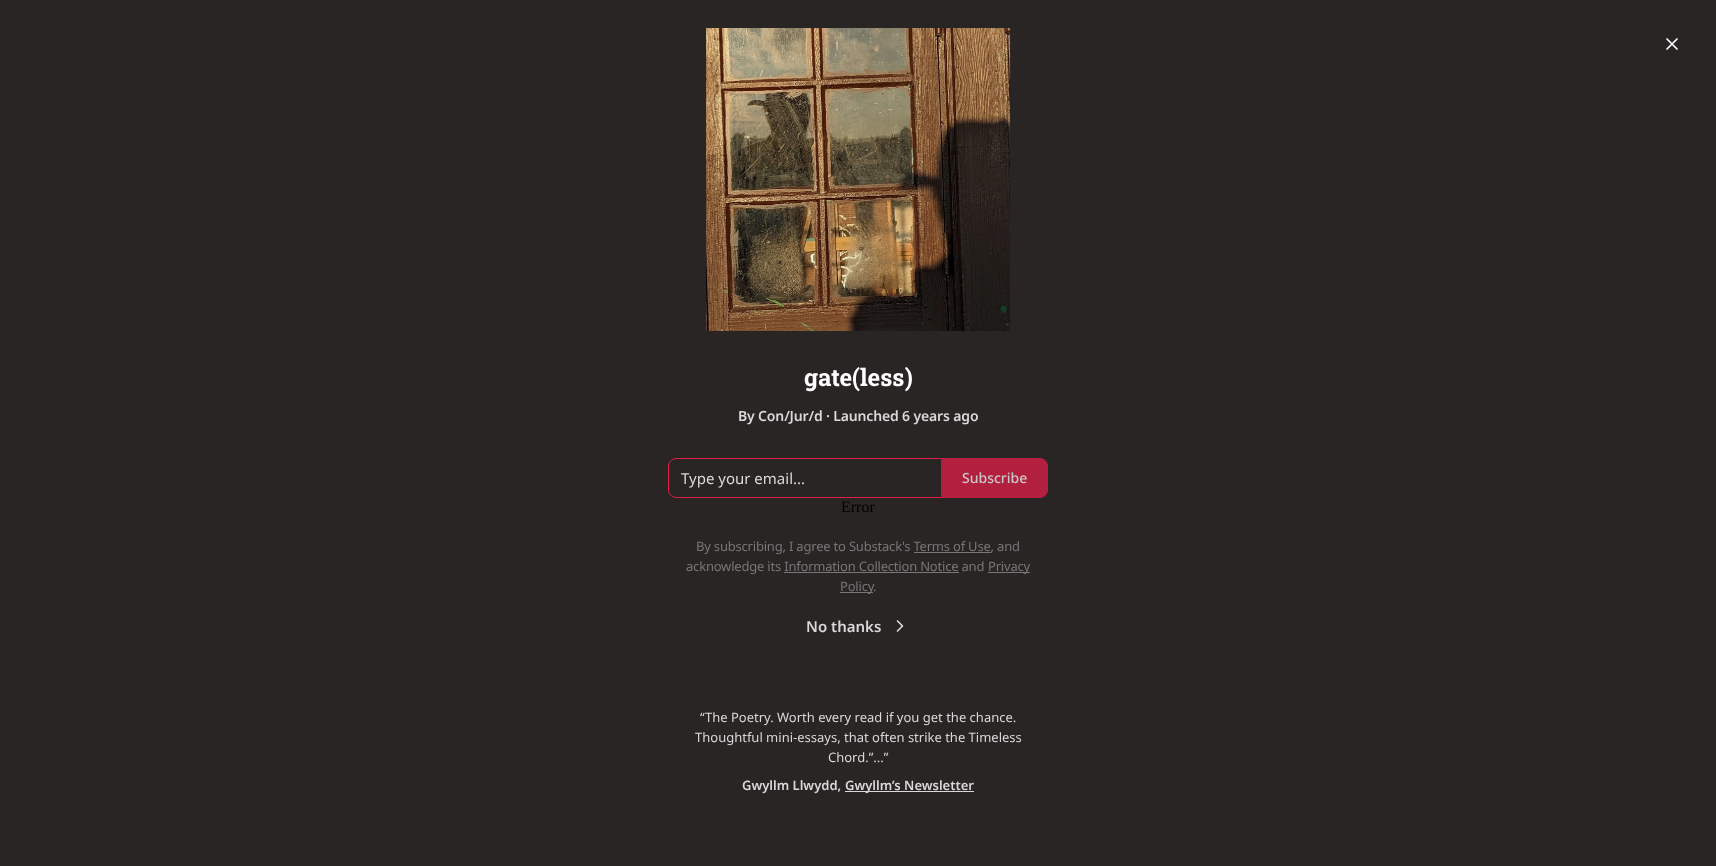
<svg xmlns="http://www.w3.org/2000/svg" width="1716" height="866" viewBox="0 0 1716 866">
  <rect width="100%" height="100%" fill="#292524"/>
  <image x="706" y="28" width="305" height="303" href="img/1.png"/>
  <path d="M1677 39L1667 49M1667 39L1677 49" fill="none" stroke="#fff" stroke-width="1.7" stroke-linecap="round" stroke-linejoin="round"/>
  <path d="M676 458H941V498H676C672 498 668 494 668 490V466C668 462 672 458 676 458ZM676 459H941V497H676C672 497 669 494 669 490V466C669 462 672 459 676 459Z" fill="#e11d48" fill-rule="evenodd"/>
  <path d="M941.5 458.5H1040C1044 458.5 1047.5 462 1047.5 466V490C1047.5 494 1044 497.5 1040 497.5H941.5Z" fill="#b31f3f" stroke="#b31f3f"/>
  <path d="M914 552h77v1H914z" fill="#777"/>
  <path d="M988 572h42v1H988z" fill="#777"/>
  <path d="M784 572h175v1H784z" fill="#777"/>
  <path d="M840 592h33v1H840z" fill="#777"/>
  <path d="M897.5 631L902.5 626L897.5 621" fill="none" stroke="#d9d9d9" stroke-width="1.7" stroke-linecap="round" stroke-linejoin="round"/>
  <path d="M845 791h129v1H845z" fill="#d9d9d9"/>
  <text x="804" y="386" font-family="Roboto Slab" font-size="24" font-weight="bold" fill="#fff">gate(less)</text>
  <text x="738" y="421" font-family="Noto Sans" font-size="14" font-weight="600" letter-spacing="-0.15" fill="#d9d9d9">By Con/Jur/d · Launched 6 years ago</text>
  <text x="681" y="484" font-family="Noto Sans" font-size="15" fill="#d9d9d9">Type your email...</text>
  <text x="962" y="483" font-family="Noto Sans" font-size="14" font-weight="500" fill="#cac9c8">Subscribe</text>
  <text x="841" y="512" font-family="Liberation Serif" font-size="16" fill="#000">Error</text>
  <g font-family="Noto Sans" font-size="13" letter-spacing="-0.2" fill="#777">
    <text x="696" y="551">By subscribing, I agree to Substack's Terms of Use, and</text>
    <text x="686" y="571">acknowledge its Information Collection Notice and</text>
    <text x="988" y="571">Privacy</text>
    <text x="840" y="591">Policy</text>
    <text x="873" y="591">.</text>
  </g>
  <text x="806" y="632" font-family="Noto Sans" font-size="15" font-weight="600" fill="#d9d9d9">No thanks</text>
  <g font-family="Noto Sans" font-size="13" fill="#d9d9d9">
    <text x="700" y="722">“The Poetry. Worth every read if you get the chance.</text>
    <text x="695" y="742">Thoughtful mini-essays, that often strike the Timeless</text>
    <text x="828" y="762">Chord.”...”</text>
  </g>
  <g font-family="Noto Sans" font-size="13" font-weight="600" fill="#d9d9d9">
    <text x="742" y="790">Gwyllm Llwydd,</text>
    <text x="845" y="790">Gwyllm’s Newsletter</text>
  </g>
</svg>
